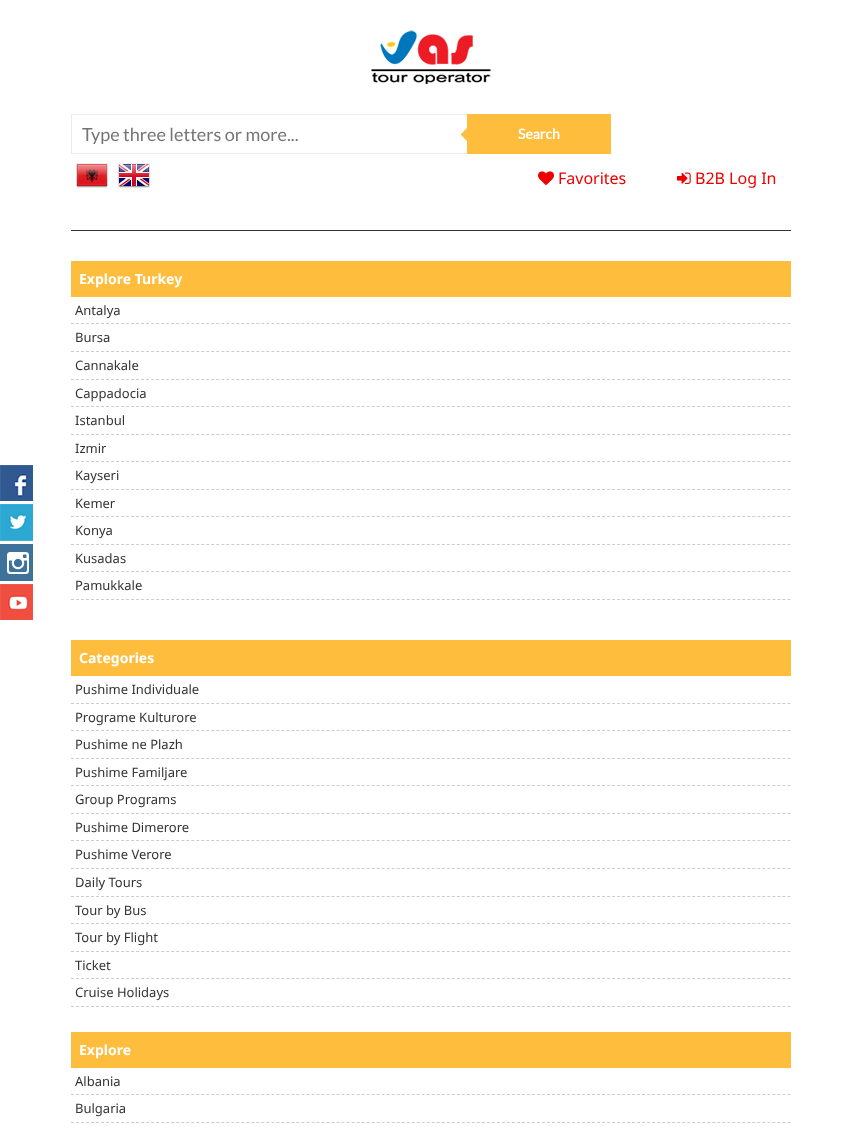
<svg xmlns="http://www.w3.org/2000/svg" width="862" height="1130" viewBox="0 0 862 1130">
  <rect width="100%" height="100%" fill="#fff"/>
  <image x="371" y="30" width="120" height="54" href="img/1.png"/>
  <path d="M71 230h720v1H71z" fill="#333"/>
  <image x="461" y="128" width="6" height="13" href="img/2.png"/>
  <path d="M71 114h396v1H71z" fill="#ececec"/>
  <path d="M71 153h396v1H71z" fill="#ececec"/>
  <path d="M71 114h1v40H71z" fill="#ececec"/>
  <path d="M467 114h144v40H467z" fill="#febd3d"/>
  <image x="76" y="163" width="32" height="25" href="img/3.png"/>
  <image x="118" y="163" width="32" height="25" href="img/4.png"/>
  <image x="538" y="171" width="16" height="15" href="img/5.png"/>
  <image x="677" y="172" width="14" height="12" href="img/6.png"/>
  <image x="0" y="465" width="33" height="36" href="img/7.png"/>
  <image x="0" y="504" width="33" height="37" href="img/8.png"/>
  <image x="0" y="544" width="33" height="37" href="img/9.png"/>
  <image x="0" y="584" width="33" height="36" href="img/10.png"/>
  <path d="M71 261h720v36H71z" fill="#febd3d"/>
  <path d="M71 323.5H791" fill="none" stroke="#cdcdcd" stroke-dasharray="3 2.01"/>
  <path d="M71 351.5H791" fill="none" stroke="#cdcdcd" stroke-dasharray="3 2.01"/>
  <path d="M71 379.5H791" fill="none" stroke="#cdcdcd" stroke-dasharray="3 2.01"/>
  <path d="M71 406.5H791" fill="none" stroke="#cdcdcd" stroke-dasharray="3 2.01"/>
  <path d="M71 434.5H791" fill="none" stroke="#cdcdcd" stroke-dasharray="3 2.01"/>
  <path d="M71 461.5H791" fill="none" stroke="#cdcdcd" stroke-dasharray="3 2.01"/>
  <path d="M71 489.5H791" fill="none" stroke="#cdcdcd" stroke-dasharray="3 2.01"/>
  <path d="M71 516.5H791" fill="none" stroke="#cdcdcd" stroke-dasharray="3 2.01"/>
  <path d="M71 544.5H791" fill="none" stroke="#cdcdcd" stroke-dasharray="3 2.01"/>
  <path d="M71 571.5H791" fill="none" stroke="#cdcdcd" stroke-dasharray="3 2.01"/>
  <path d="M71 599.5H791" fill="none" stroke="#cdcdcd" stroke-dasharray="3 2.01"/>
  <path d="M71 640h720v36H71z" fill="#febd3d"/>
  <path d="M71 703.5H791" fill="none" stroke="#cdcdcd" stroke-dasharray="3 2.01"/>
  <path d="M71 730.5H791" fill="none" stroke="#cdcdcd" stroke-dasharray="3 2.01"/>
  <path d="M71 758.5H791" fill="none" stroke="#cdcdcd" stroke-dasharray="3 2.01"/>
  <path d="M71 785.5H791" fill="none" stroke="#cdcdcd" stroke-dasharray="3 2.01"/>
  <path d="M71 813.5H791" fill="none" stroke="#cdcdcd" stroke-dasharray="3 2.01"/>
  <path d="M71 840.5H791" fill="none" stroke="#cdcdcd" stroke-dasharray="3 2.01"/>
  <path d="M71 868.5H791" fill="none" stroke="#cdcdcd" stroke-dasharray="3 2.01"/>
  <path d="M71 896.5H791" fill="none" stroke="#cdcdcd" stroke-dasharray="3 2.01"/>
  <path d="M71 923.5H791" fill="none" stroke="#cdcdcd" stroke-dasharray="3 2.01"/>
  <path d="M71 951.5H791" fill="none" stroke="#cdcdcd" stroke-dasharray="3 2.01"/>
  <path d="M71 978.5H791" fill="none" stroke="#cdcdcd" stroke-dasharray="3 2.01"/>
  <path d="M71 1006.5H791" fill="none" stroke="#cdcdcd" stroke-dasharray="3 2.01"/>
  <path d="M71 1032h720v36H71z" fill="#febd3d"/>
  <path d="M71 1094.5H791" fill="none" stroke="#cdcdcd" stroke-dasharray="3 2.01"/>
  <path d="M71 1122.5H791" fill="none" stroke="#cdcdcd" stroke-dasharray="3 2.01"/>
  <text x="82" y="141" font-family="Lato" font-size="18" fill="#757575">Type three letters or more...</text>
  <text x="518" y="139" font-family="Lato" font-size="14" font-weight="bold" fill="#fff">Search</text>
  <g font-family="Noto Sans" font-size="16" fill="#ef0000">
    <text x="558" y="184">Favorites</text>
    <text x="695" y="184">B2B Log In</text>
  </g>
  <text x="79" y="284" font-family="Noto Sans" font-size="14" font-weight="bold" fill="#fff">Explore Turkey</text>
  <g font-family="Noto Sans" font-size="13" fill="#333">
    <text x="75" y="315">Antalya</text>
    <text x="75" y="342">Bursa</text>
    <text x="75" y="370">Cannakale</text>
    <text x="75" y="398">Cappadocia</text>
    <text x="75" y="425">Istanbul</text>
    <text x="75" y="453">Izmir</text>
    <text x="75" y="480">Kayseri</text>
    <text x="75" y="508">Kemer</text>
    <text x="75" y="535">Konya</text>
    <text x="75" y="563">Kusadas</text>
    <text x="75" y="590">Pamukkale</text>
  </g>
  <text x="79" y="663" font-family="Noto Sans" font-size="14" font-weight="bold" fill="#fff">Categories</text>
  <g font-family="Noto Sans" font-size="13" fill="#333">
    <text x="75" y="694">Pushime Individuale</text>
    <text x="75" y="722">Programe Kulturore</text>
    <text x="75" y="749">Pushime ne Plazh</text>
    <text x="75" y="777">Pushime Familjare</text>
    <text x="75" y="804">Group Programs</text>
    <text x="75" y="832">Pushime Dimerore</text>
    <text x="75" y="859">Pushime Verore</text>
    <text x="75" y="887">Daily Tours</text>
    <text x="75" y="915">Tour by Bus</text>
    <text x="75" y="942">Tour by Flight</text>
    <text x="75" y="970">Ticket</text>
    <text x="75" y="997">Cruise Holidays</text>
  </g>
  <text x="79" y="1055" font-family="Noto Sans" font-size="14" font-weight="bold" fill="#fff">Explore</text>
  <g font-family="Noto Sans" font-size="13" fill="#333">
    <text x="75" y="1086">Albania</text>
    <text x="75" y="1113">Bulgaria</text>
  </g>
</svg>
